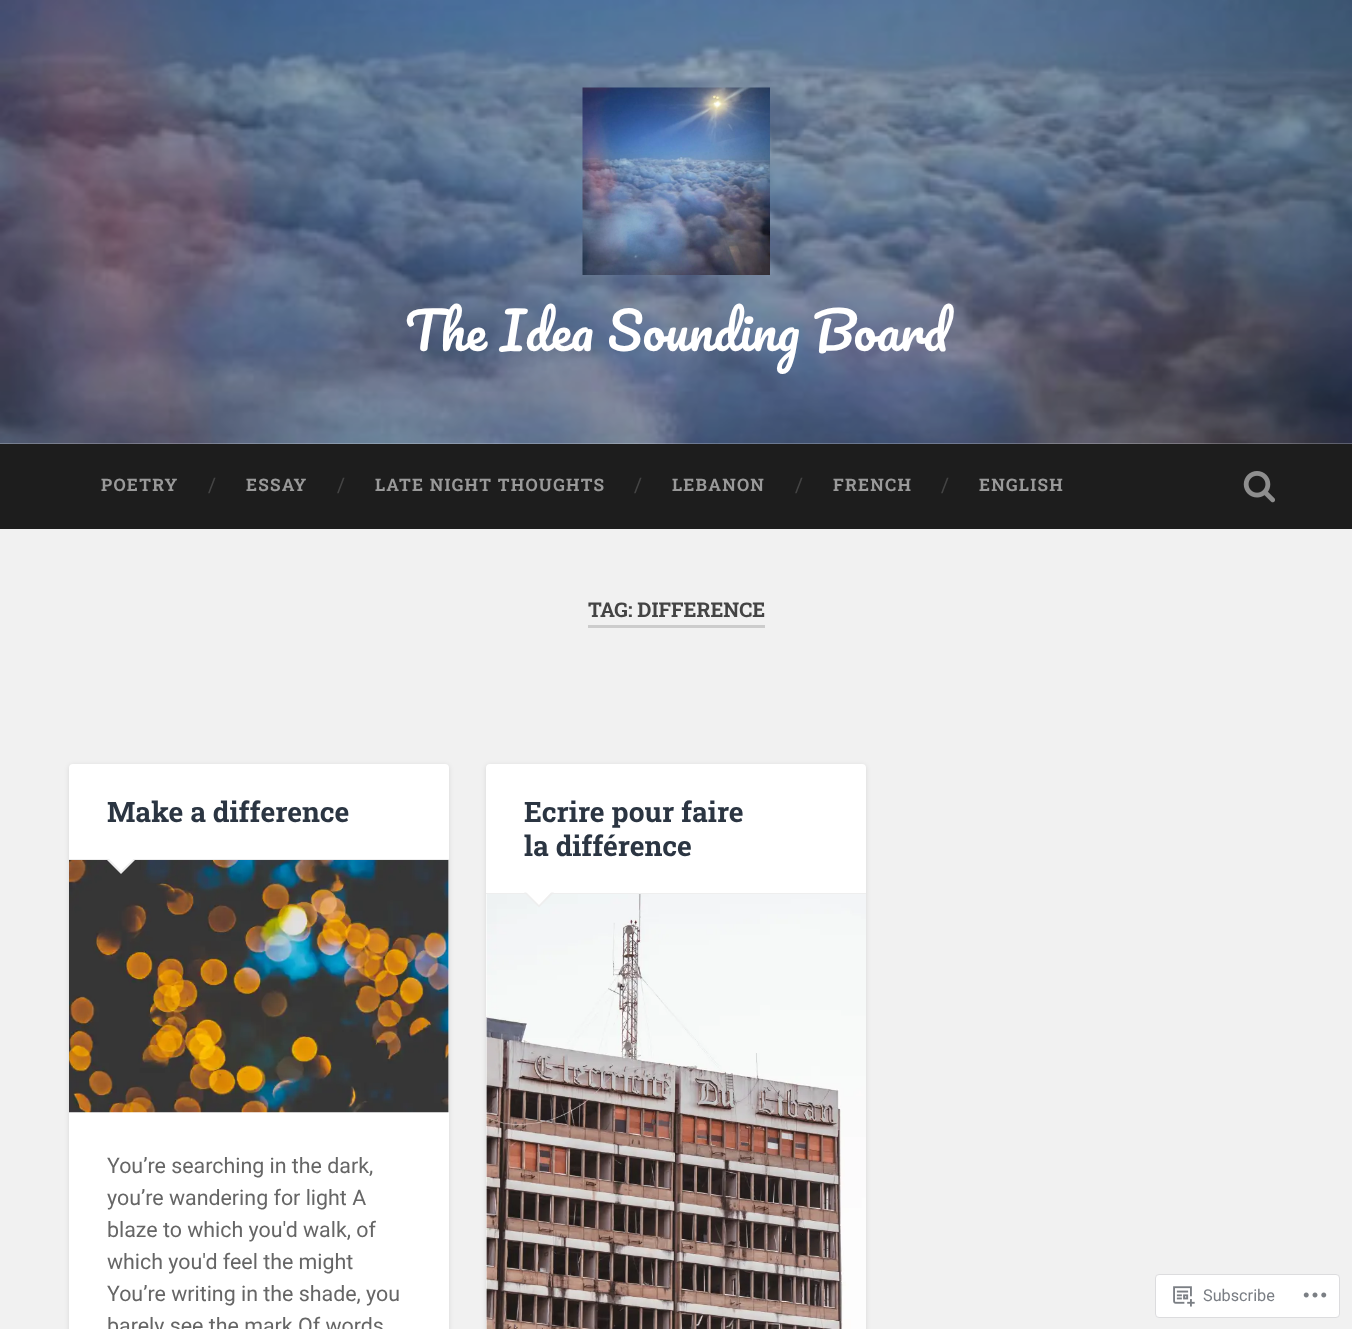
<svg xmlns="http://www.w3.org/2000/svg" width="1352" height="1329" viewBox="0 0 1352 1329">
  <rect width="100%" height="100%" fill="#f1f1f1"/>
  <image x="0" y="0" width="1352" height="444" href="img/1.png"/>
  <image x="582" y="87" width="188" height="188" href="img/2.png"/>
  <path d="M0 444h1352v85H0z" fill="#1d1d1d"/>
  <image x="1243" y="471" width="32" height="32" href="img/3.png"/>
  <path d="M588 625h177v3H588z" fill="#ccc"/>
  <rect x="69" y="765" width="380" height="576" rx="4" fill="#0000001a" filter="blur(2.5px)"/>
  <rect x="69" y="764" width="380" height="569" rx="4" fill="#fff"/>
  <path d="M69 859h380v1H69z" fill="#eee"/>
  <image x="69" y="860" width="380" height="253" href="img/4.png"/>
  <path d="M106 859H136L121 874Z" fill="#eee"/>
  <path d="M107.5 857.5H135L121 871Z" fill="#fff"/>
  <rect x="486" y="765" width="380" height="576" rx="4" fill="#0000001a" filter="blur(2.5px)"/>
  <rect x="486" y="764" width="380" height="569" rx="4" fill="#fff"/>
  <path d="M486 893h380v1H486z" fill="#eee"/>
  <image x="486" y="894" width="380" height="435" href="img/5.png"/>
  <path d="M524 892.5H554L539 907.5Z" fill="#eee"/>
  <path d="M525 891H552.5L539 905Z" fill="#fff"/>
  <rect x="1155.5" y="1274.5" width="184" height="43" rx="3.5" fill="#fff" stroke="#dcdcde"/>
  <image x="1173" y="1286" width="22" height="21" href="img/6.png"/>
  <image x="1303" y="1292" width="24" height="6" href="img/7.png"/>
  <text x="405" y="351" font-family="Pacifico" font-size="50.6" fill="#fff">The Idea Sounding Board</text>
  <text x="101" y="491" font-family="Roboto Slab" font-size="17.25" font-weight="bold" letter-spacing="1.25" fill="#999">POETRY</text>
  <text x="208" y="492" font-family="Roboto Slab" font-size="20" fill="#444">/</text>
  <text x="246" y="491" font-family="Roboto Slab" font-size="17.25" font-weight="bold" letter-spacing="1.25" fill="#999">ESSAY</text>
  <text x="337" y="492" font-family="Roboto Slab" font-size="20" fill="#444">/</text>
  <text x="375" y="491" font-family="Roboto Slab" font-size="17.25" font-weight="bold" letter-spacing="1.25" fill="#999">LATE NIGHT THOUGHTS</text>
  <text x="634" y="492" font-family="Roboto Slab" font-size="20" fill="#444">/</text>
  <text x="672" y="491" font-family="Roboto Slab" font-size="17.25" font-weight="bold" letter-spacing="1.25" fill="#999">LEBANON</text>
  <text x="795" y="492" font-family="Roboto Slab" font-size="20" fill="#444">/</text>
  <text x="833" y="491" font-family="Roboto Slab" font-size="17.25" font-weight="bold" letter-spacing="1.25" fill="#999">FRENCH</text>
  <text x="941" y="492" font-family="Roboto Slab" font-size="20" fill="#444">/</text>
  <text x="979" y="491" font-family="Roboto Slab" font-size="17.25" font-weight="bold" letter-spacing="1.25" fill="#999">ENGLISH</text>
  <text x="588" y="617" font-family="Roboto Slab" font-size="20.25" font-weight="bold" fill="#444">TAG: DIFFERENCE</text>
  <text x="107" y="822" font-family="Roboto Slab" font-size="28.1" font-weight="bold" fill="#2b3542">Make a difference</text>
  <g font-family="Roboto" font-size="21.4" fill="#666">
    <text x="107" y="1173">You’re searching in the dark,</text>
    <text x="107" y="1205">you’re wandering for light A</text>
    <text x="107" y="1237">blaze to which you'd walk, of</text>
    <text x="107" y="1269">which you'd feel the might</text>
    <text x="107" y="1301">You’re writing in the shade, you</text>
    <text x="107" y="1333">barely see the mark Of words</text>
  </g>
  <g font-family="Roboto Slab" font-size="28.1" font-weight="bold" fill="#2b3542">
    <text x="524" y="822">Ecrire pour faire</text>
    <text x="524" y="856">la différence</text>
  </g>
  <text x="1203" y="1301" font-family="Roboto" font-size="16.25" fill="#7a7e84">Subscribe</text>
</svg>
